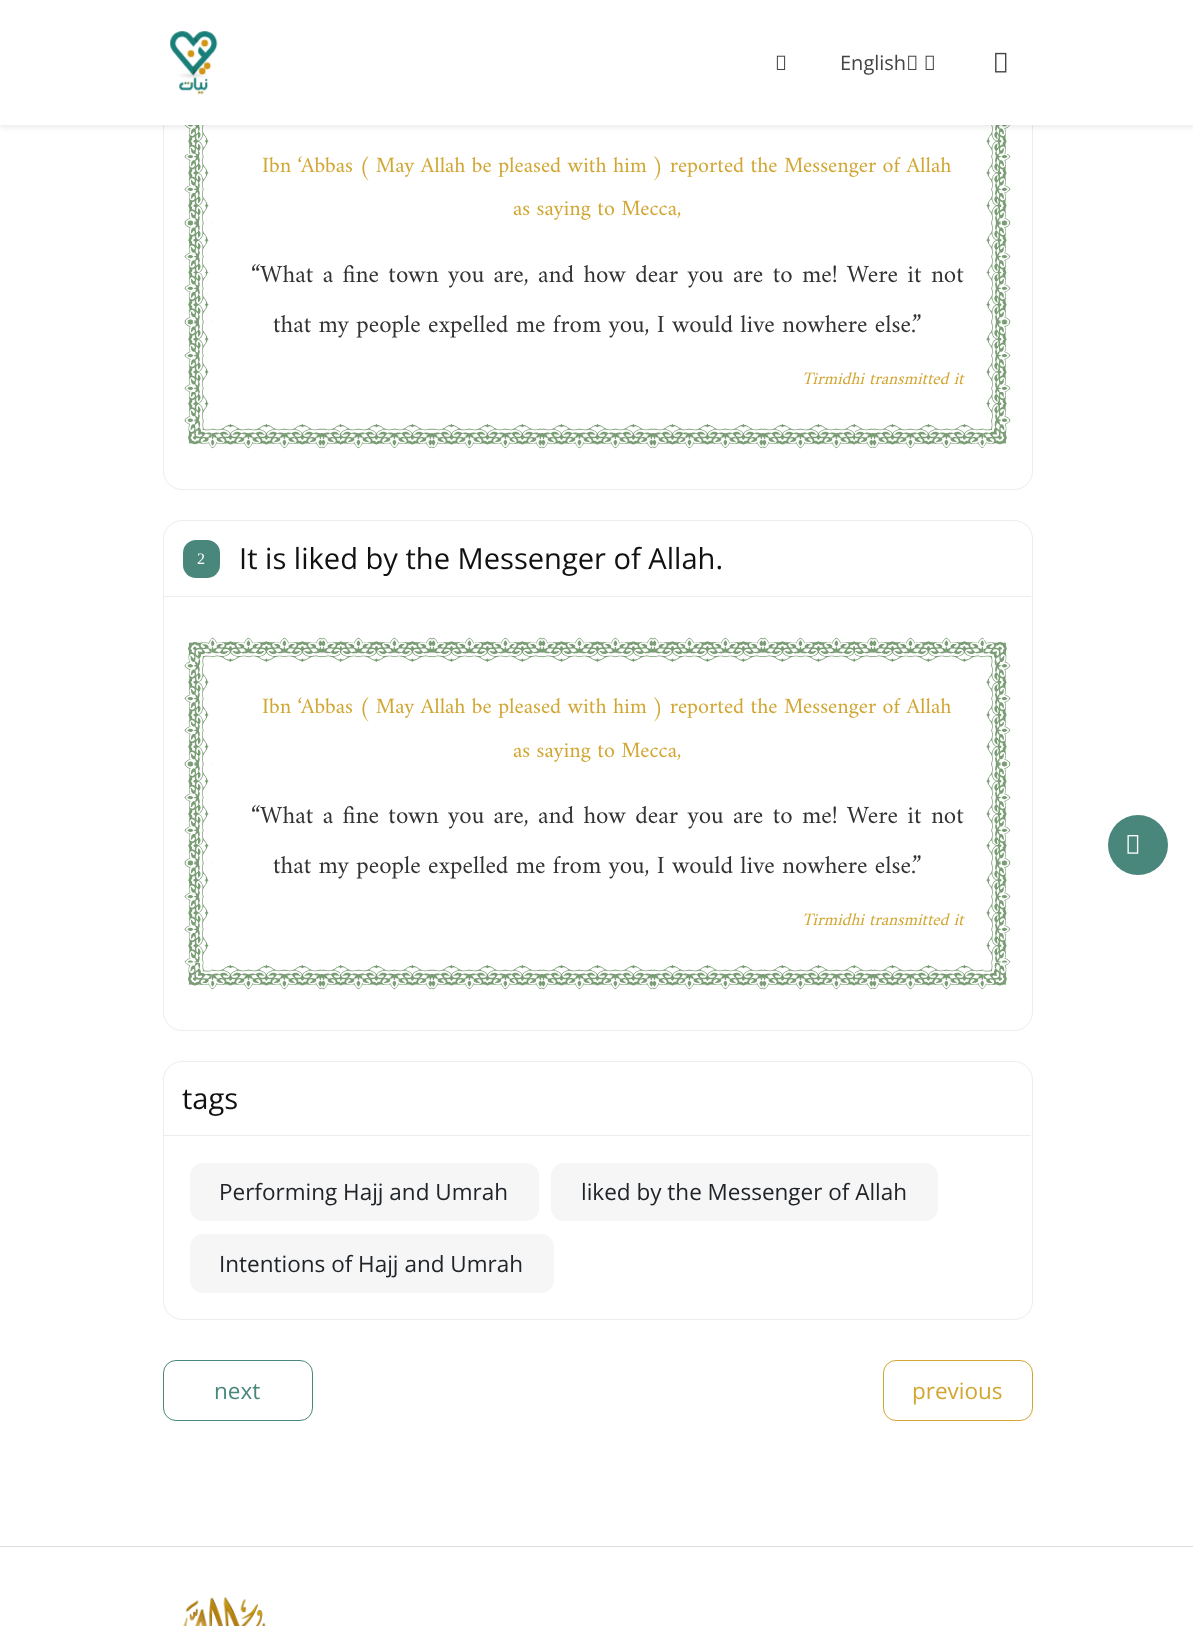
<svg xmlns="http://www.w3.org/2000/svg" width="1193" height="1626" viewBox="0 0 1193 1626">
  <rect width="100%" height="100%" fill="#fff"/>
  <rect x="163.5" y="-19.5" width="869" height="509" rx="18.5" fill="none" stroke="#ededed"/>
  <image x="184" y="125" width="827" height="324" href="img/6.png"/>
  <path d="M0 3h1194v125H0z" fill="#00000012" filter="blur(2.5px)"/>
  <path d="M0 0h1193v125H0z" fill="#fff"/>
  <image x="169" y="31" width="49" height="64" href="img/1.png"/>
  <image x="776" y="55" width="10" height="15" href="img/2.png"/>
  <image x="908" y="55" width="9" height="15" href="img/3.png"/>
  <image x="925" y="55" width="9" height="15" href="img/4.png"/>
  <image x="995" y="52" width="12" height="21" href="img/5.png"/>
  <rect x="163.5" y="520.5" width="869" height="510" rx="18.5" fill="none" stroke="#ededed"/>
  <path d="M164 596h867v1H164z" fill="#ededed"/>
  <rect x="183" y="540" width="37" height="38" rx="13" fill="#49877c"/>
  <image x="184" y="637" width="827" height="353" href="img/7.png"/>
  <rect x="163.5" y="1061.5" width="869" height="258" rx="18.5" fill="none" stroke="#ededed"/>
  <path d="M164 1135h867v1H164z" fill="#ededed"/>
  <rect x="190" y="1163" width="349" height="58" rx="13" fill="#f6f6f6"/>
  <rect x="551" y="1163" width="387" height="58" rx="13" fill="#f6f6f6"/>
  <rect x="190" y="1234" width="364" height="59" rx="13" fill="#f6f6f6"/>
  <rect x="163.5" y="1360.5" width="149" height="60" rx="12.5" fill="none" stroke="#49877c"/>
  <rect x="883.5" y="1360.5" width="149" height="60" rx="12.5" fill="none" stroke="#d1a632"/>
  <circle cx="1138" cy="845" r="30" fill="#49877c"/>
  <image x="1127" y="835" width="12" height="19" href="img/8.png"/>
  <path d="M0 1546h1193v1H0z" fill="#ddd"/>
  <image x="183" y="1597" width="83" height="29" href="img/9.png"/>
  <text x="840" y="70" font-family="Open Sans" font-size="20" fill="#444">English</text>
  <g font-family="Amiri" font-size="22" fill="#d1a632">
    <text x="262" y="172">Ibn ‘Abbas ( May Allah be pleased with him ) reported the Messenger of Allah</text>
    <text x="513" y="215">as saying to Mecca,</text>
  </g>
  <g font-family="Amiri" font-size="25" fill="#333">
    <text x="251" y="282" word-spacing="2.1">“What a fine town you are, and how dear you are to me! Were it not</text>
    <text x="273" y="332">that my people expelled me from you, I would live nowhere else.”</text>
  </g>
  <text x="802" y="384" font-family="Amiri" font-size="17.5" font-style="italic" fill="#d1a632">Tirmidhi transmitted it</text>
  <text x="197" y="564" font-family="Liberation Serif" font-size="16" fill="#fff">2</text>
  <text x="239" y="569" font-family="Open Sans" font-size="29.1" fill="#111">It is liked by the Messenger of Allah.</text>
  <g font-family="Amiri" font-size="22" fill="#d1a632">
    <text x="262" y="713">Ibn ‘Abbas ( May Allah be pleased with him ) reported the Messenger of Allah</text>
    <text x="513" y="757">as saying to Mecca,</text>
  </g>
  <g font-family="Amiri" font-size="25" fill="#333">
    <text x="251" y="823" word-spacing="2.1">“What a fine town you are, and how dear you are to me! Were it not</text>
    <text x="273" y="873">that my people expelled me from you, I would live nowhere else.”</text>
  </g>
  <text x="802" y="925" font-family="Amiri" font-size="17.5" font-style="italic" fill="#d1a632">Tirmidhi transmitted it</text>
  <text x="182" y="1109" font-family="Open Sans" font-size="29.1" fill="#111">tags</text>
  <g font-family="Open Sans" font-size="22.5" fill="#212529">
    <text x="219" y="1200">Performing Hajj and Umrah</text>
    <text x="581" y="1200">liked by the Messenger of Allah</text>
    <text x="219" y="1272">Intentions of Hajj and Umrah</text>
  </g>
  <text x="214" y="1399" font-family="Open Sans" font-size="22.5" fill="#49877c">next</text>
  <text x="912" y="1399" font-family="Open Sans" font-size="22.5" fill="#d1a632">previous</text>
</svg>
